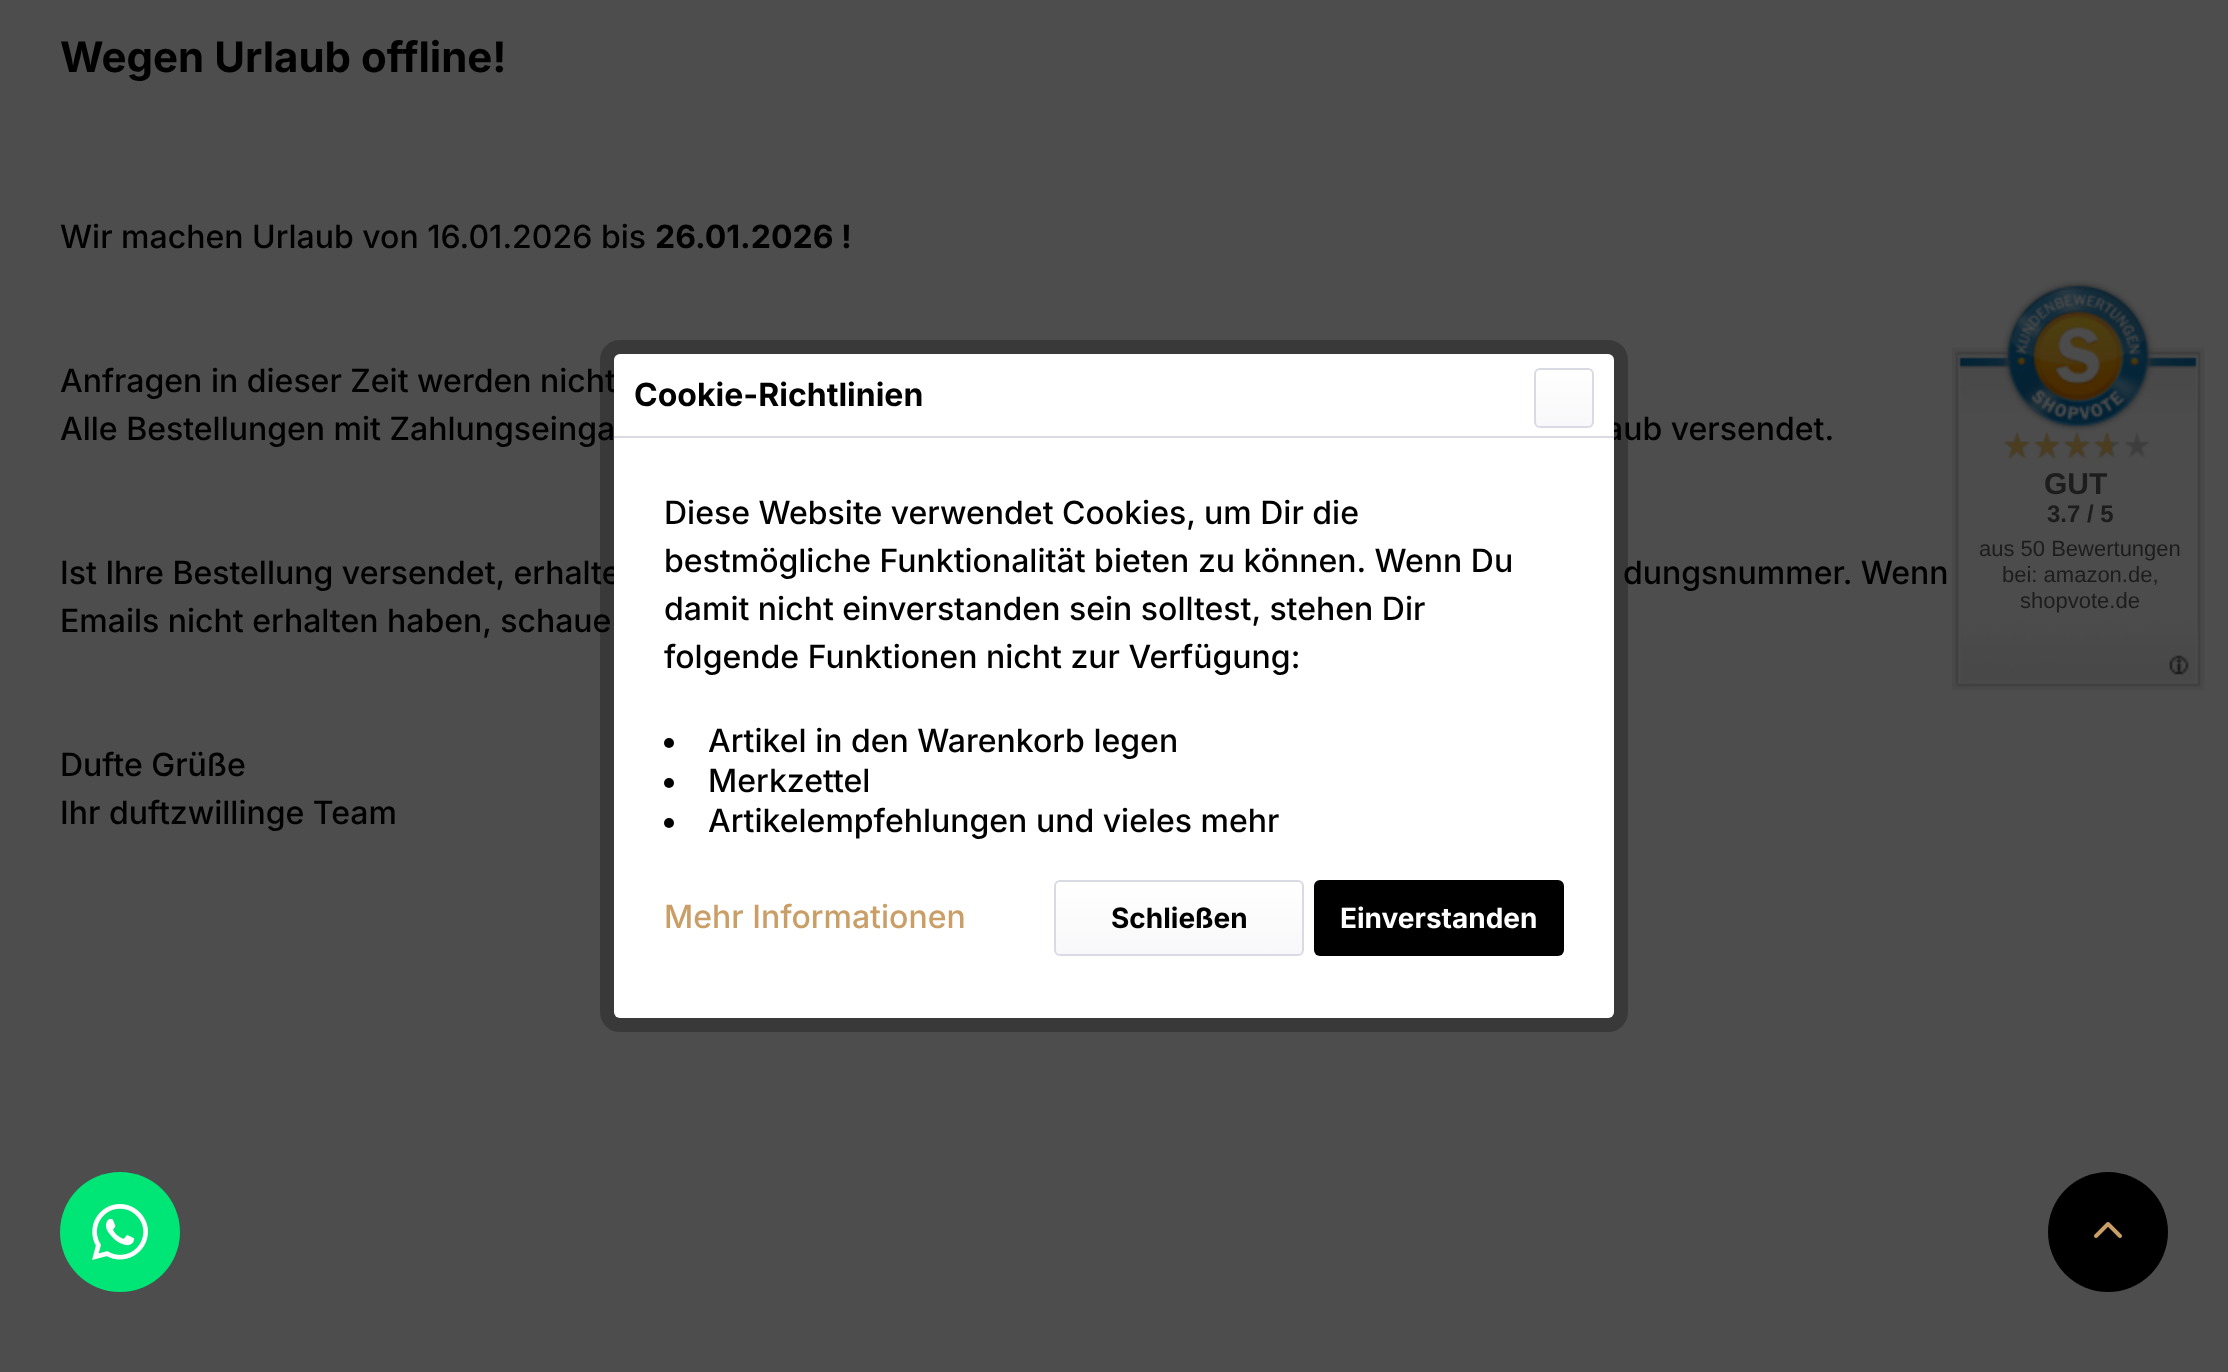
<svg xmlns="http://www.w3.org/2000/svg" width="2228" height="1372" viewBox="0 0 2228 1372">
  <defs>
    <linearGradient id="g1" gradientUnits="userSpaceOnUse" x1="1564" y1="370" x2="1564" y2="426"><stop offset="0" stop-color="#fff"/><stop offset="1" stop-color="#f8f8fa"/></linearGradient>
    <linearGradient id="g2" gradientUnits="userSpaceOnUse" x1="1179" y1="882" x2="1179" y2="954"><stop offset="0" stop-color="#fff"/><stop offset="1" stop-color="#f8f8fa"/></linearGradient>
  </defs>
  <rect width="100%" height="100%" fill="#4d4d4d"/>
  <circle cx="120" cy="1232" r="60" fill="#00e676"/>
  <image x="92" y="1204" width="56" height="56" href="img/1.png"/>
  <image x="1952" y="280" width="253" height="410" href="img/2.png"/>
  <image x="2004" y="432" width="109" height="26" href="img/3.png"/>
  <circle cx="2108" cy="1232" r="60" fill="#000"/>
  <image x="2094" y="1222" width="28" height="16" href="img/4.png"/>
  <text x="60" y="72" font-family="Inter" font-size="42" font-weight="bold" fill="#000">Wegen Urlaub offline!</text>
  <text x="60" y="248" font-family="Inter" font-size="32" font-weight="500" fill="#000">Wir machen Urlaub von 16.01.2026 bis</text>
  <text x="655" y="248" font-family="Inter" font-size="32" font-weight="bold" fill="#000">26.01.2026 !</text>
  <g font-family="Inter" font-size="32" font-weight="500" fill="#000">
    <text x="60" y="392">Anfragen in dieser Zeit werden nicht</text>
    <text x="60" y="440">Alle Bestellungen mit Zahlungseinga</text>
    <text x="1605" y="440">aub versendet.</text>
    <text x="60" y="584">Ist Ihre Bestellung versendet, erhalte</text>
    <text x="1623" y="584">dungsnummer. Wenn</text>
    <text x="60" y="632">Emails nicht erhalten haben, schaue</text>
    <text x="60" y="776">Dufte Grüße</text>
    <text x="60" y="824">Ihr duftzwillinge Team</text>
  </g>
  <rect x="607" y="347" width="1014" height="678" rx="13" fill="none" stroke="#00000040" stroke-width="14"/>
  <rect x="614" y="354" width="1000" height="664" rx="6" fill="#fff"/>
  <path d="M614 436h1000v2H614z" fill="#dadae5"/>
  <text x="634" y="406" font-family="Inter" font-size="32" font-weight="bold" fill="#000">Cookie-Richtlinien</text>
  <rect x="1536" y="370" width="56" height="56" rx="4" fill="url(#g1)"/>
  <rect x="1535" y="369" width="58" height="58" rx="5" fill="none" stroke="#dadae5" stroke-width="2"/>
  <g font-family="Inter" font-size="32" font-weight="500" fill="#000">
    <text x="664" y="524">Diese Website verwendet Cookies, um Dir die</text>
    <text x="664" y="572">bestmögliche Funktionalität bieten zu können. Wenn Du</text>
    <text x="664" y="620">damit nicht einverstanden sein solltest, stehen Dir</text>
    <text x="664" y="668">folgende Funktionen nicht zur Verfügung:</text>
  </g>
  <circle cx="669" cy="743" r="5" fill="#000"/>
  <text x="708" y="752" font-family="Inter" font-size="32" font-weight="500" fill="#000">Artikel in den Warenkorb legen</text>
  <circle cx="669" cy="783" r="5" fill="#000"/>
  <text x="708" y="792" font-family="Inter" font-size="32" font-weight="500" fill="#000">Merkzettel</text>
  <circle cx="669" cy="823" r="5" fill="#000"/>
  <text x="708" y="832" font-family="Inter" font-size="32" font-weight="500" fill="#000">Artikelempfehlungen und vieles mehr</text>
  <text x="664" y="928" font-family="Inter" font-size="32" font-weight="500" fill="#c99e67">Mehr Informationen</text>
  <rect x="1056" y="882" width="246" height="72" rx="4" fill="url(#g2)"/>
  <rect x="1055" y="881" width="248" height="74" rx="5" fill="none" stroke="#dadae5" stroke-width="2"/>
  <text x="1111" y="928" font-family="Inter" font-size="28" font-weight="bold" fill="#000">Schließen</text>
  <rect x="1314" y="880" width="250" height="76" rx="6" fill="#000"/>
  <text x="1340" y="928" font-family="Inter" font-size="28" font-weight="bold" fill="#fff">Einverstanden</text>
  <text x="2044" y="494" font-family="Liberation Sans" font-size="30" font-weight="bold" fill="#1d1d1d">GUT</text>
  <text x="2047" y="522" font-family="Liberation Sans" font-size="24" font-weight="bold" fill="#1d1d1d">3.7 / 5</text>
  <g font-family="Liberation Sans" font-size="22" fill="#1d1d1d">
    <text x="1979" y="556">aus 50 Bewertungen</text>
    <text x="2002" y="582">bei: amazon.de,</text>
    <text x="2020" y="608">shopvote.de</text>
  </g>
</svg>
